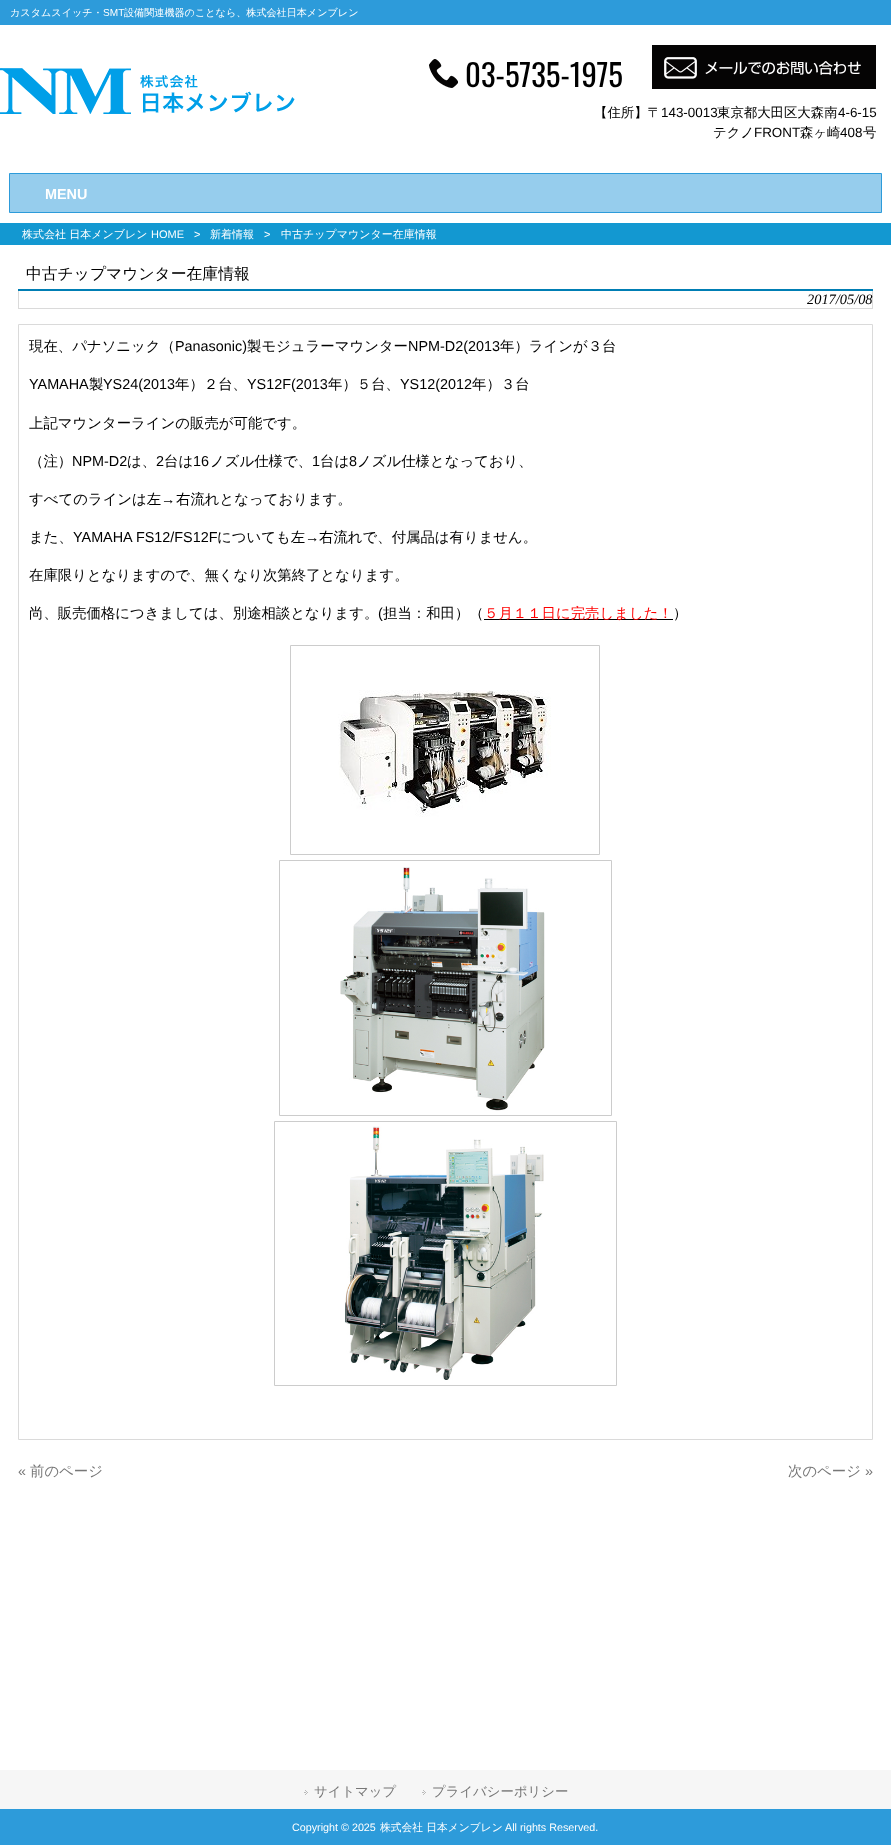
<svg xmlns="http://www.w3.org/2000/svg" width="891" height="1845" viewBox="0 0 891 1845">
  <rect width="100%" height="100%" fill="#fff"/>
  <path d="M0 0h891v25H0z" fill="#2d9bda"/>
  <image x="0" y="68" width="295" height="46" href="img/1.png"/>
  <image x="429" y="59" width="29" height="29" href="img/2.png"/>
  <image x="652" y="45" width="224" height="44" href="img/3.png"/>
  <path d="M9.5 173.5h872v39H9.5z" fill="#96cded" stroke="#2d9bda"/>
  <path d="M0 223h891v22H0z" fill="#1398d1"/>
  <path d="M18 289h855v2H18z" fill="#007eb4"/>
  <path d="M872 291h1v18H872z" fill="#dadada"/>
  <path d="M18 308h855v1H18z" fill="#dadada"/>
  <path d="M18 291h1v18H18z" fill="#dadada"/>
  <path d="M18.5 324.5h854v1115H18.5z" fill="none" stroke="#dadada"/>
  <path d="M484 619h189v1H484z" fill="#000"/>
  <path d="M290.5 645.5h309v209H290.5z" fill="none" stroke="#ccc"/>
  <image x="338" y="690" width="213" height="127" href="img/4.png"/>
  <path d="M279.5 860.5h332v255H279.5z" fill="none" stroke="#ccc"/>
  <image x="340" y="867" width="205" height="244" href="img/5.png"/>
  <path d="M274.5 1121.5h342v264H274.5z" fill="none" stroke="#ccc"/>
  <image x="345" y="1126" width="199" height="254" href="img/6.png"/>
  <path d="M0 1770h891v39H0z" fill="#f6f6f6"/>
  <image x="304" y="1790" width="4" height="5" href="img/7.png"/>
  <image x="422" y="1790" width="4" height="5" href="img/7.png"/>
  <path d="M0 1809h891v36H0z" fill="#2d9bda"/>
  <text x="10" y="16" font-family="WenQuanYi Zen Hei" font-size="10.1" font-weight="500" fill="#fff">カスタムスイッチ・</text>
  <text x="103" y="16" font-family="Liberation Sans" font-size="10.1" fill="#fff">SMT</text>
  <text x="124" y="16" font-family="WenQuanYi Zen Hei" font-size="10.1" font-weight="500" fill="#fff">設備関連機器のことなら、株式会社日本メンブレン</text>
  <text x="465" y="87" font-family="Oswald" font-size="30.75" fill="#000">03-5735-1975</text>
  <text x="594" y="117" font-family="WenQuanYi Zen Hei" font-size="13.4" font-weight="500" fill="#000">【住所】〒</text>
  <text x="661" y="117" font-family="Liberation Sans" font-size="13.4" fill="#000">143-0013</text>
  <text x="717" y="117" font-family="WenQuanYi Zen Hei" font-size="13.4" font-weight="500" fill="#000">東京都大田区大森南</text>
  <text x="838" y="117" font-family="Liberation Sans" font-size="13.4" fill="#000">4-6-15</text>
  <text x="713" y="137" font-family="WenQuanYi Zen Hei" font-size="13.4" font-weight="500" fill="#000">テクノ</text>
  <text x="754" y="137" font-family="Liberation Sans" font-size="13.4" fill="#000">FRONT</text>
  <text x="800" y="137" font-family="WenQuanYi Zen Hei" font-size="13.4" font-weight="500" fill="#000">森ヶ崎</text>
  <text x="840" y="137" font-family="Liberation Sans" font-size="13.4" fill="#000">408</text>
  <text x="863" y="137" font-family="WenQuanYi Zen Hei" font-size="13.4" font-weight="500" fill="#000">号</text>
  <text x="45" y="199" font-family="Liberation Sans" font-size="14.4" font-weight="bold" fill="#fff">MENU</text>
  <text x="22" y="238" font-family="WenQuanYi Zen Hei" font-size="11" font-weight="500" fill="#fff">株式会社 日本メンブレン</text>
  <g font-family="Liberation Sans" font-size="11" fill="#fff">
    <text x="151" y="238">HOME</text>
    <text x="194" y="238">&gt;</text>
  </g>
  <text x="210" y="238" font-family="WenQuanYi Zen Hei" font-size="11" font-weight="500" fill="#fff">新着情報</text>
  <text x="264" y="238" font-family="Liberation Sans" font-size="11" fill="#fff">&gt;</text>
  <text x="281" y="238" font-family="WenQuanYi Zen Hei" font-size="11" font-weight="500" fill="#fff">中古チップマウンター在庫情報</text>
  <text x="26" y="279" font-family="WenQuanYi Zen Hei" font-size="15.8" font-weight="500" fill="#000">中古チップマウンター在庫情報</text>
  <text x="807" y="304" font-family="Liberation Serif" font-size="14.4" font-style="italic" fill="#000">2017/05/08</text>
  <text x="29" y="351" font-family="WenQuanYi Zen Hei" font-size="14.4" font-weight="500" fill="#000">現在、パナソニック（</text>
  <text x="175" y="351" font-family="Liberation Sans" font-size="14.4" fill="#000">Panasonic)</text>
  <text x="247" y="351" font-family="WenQuanYi Zen Hei" font-size="14.4" font-weight="500" fill="#000">製モジュラーマウンター</text>
  <text x="408" y="351" font-family="Liberation Sans" font-size="14.4" fill="#000">NPM-D2(2013</text>
  <text x="500" y="351" font-family="WenQuanYi Zen Hei" font-size="14.4" font-weight="500" fill="#000">年）ラインが３台</text>
  <text x="29" y="389" font-family="Liberation Sans" font-size="14.4" fill="#000">YAMAHA</text>
  <text x="89" y="389" font-family="WenQuanYi Zen Hei" font-size="14.4" font-weight="500" fill="#000">製</text>
  <text x="103" y="389" font-family="Liberation Sans" font-size="14.4" fill="#000">YS24(2013</text>
  <text x="175" y="389" font-family="WenQuanYi Zen Hei" font-size="14.4" font-weight="500" fill="#000">年）２台、</text>
  <text x="247" y="389" font-family="Liberation Sans" font-size="14.4" fill="#000">YS12F(2013</text>
  <text x="328" y="389" font-family="WenQuanYi Zen Hei" font-size="14.4" font-weight="500" fill="#000">年）５台、</text>
  <text x="400" y="389" font-family="Liberation Sans" font-size="14.4" fill="#000">YS12(2012</text>
  <g font-family="WenQuanYi Zen Hei" font-size="14.4" font-weight="500" fill="#000">
    <text x="472" y="389">年）３台</text>
    <text x="29" y="428">上記マウンターラインの販売が可能です。</text>
    <text x="29" y="466">（注）</text>
  </g>
  <text x="72" y="466" font-family="Liberation Sans" font-size="14.4" fill="#000">NPM-D2</text>
  <text x="127" y="466" font-family="WenQuanYi Zen Hei" font-size="14.4" font-weight="500" fill="#000">は、</text>
  <text x="156" y="466" font-family="Liberation Sans" font-size="14.4" fill="#000">2</text>
  <text x="164" y="466" font-family="WenQuanYi Zen Hei" font-size="14.4" font-weight="500" fill="#000">台は</text>
  <text x="193" y="466" font-family="Liberation Sans" font-size="14.4" fill="#000">16</text>
  <text x="210" y="466" font-family="WenQuanYi Zen Hei" font-size="14.4" font-weight="500" fill="#000">ノズル仕様で、</text>
  <text x="312" y="466" font-family="Liberation Sans" font-size="14.4" fill="#000">1</text>
  <text x="320" y="466" font-family="WenQuanYi Zen Hei" font-size="14.4" font-weight="500" fill="#000">台は</text>
  <text x="349" y="466" font-family="Liberation Sans" font-size="14.4" fill="#000">8</text>
  <g font-family="WenQuanYi Zen Hei" font-size="14.4" font-weight="500" fill="#000">
    <text x="357" y="466">ノズル仕様となっており、</text>
    <text x="29" y="504">すべてのラインは左</text>
  </g>
  <text x="161" y="504" font-family="Liberation Sans" font-size="14.4" fill="#000">→</text>
  <g font-family="WenQuanYi Zen Hei" font-size="14.4" font-weight="500" fill="#000">
    <text x="176" y="504">右流れとなっております。</text>
    <text x="29" y="542">また、</text>
  </g>
  <text x="73" y="542" font-family="Liberation Sans" font-size="14.4" fill="#000">YAMAHA FS12/FS12F</text>
  <text x="217" y="542" font-family="WenQuanYi Zen Hei" font-size="14.4" font-weight="500" fill="#000">についても左</text>
  <text x="305" y="542" font-family="Liberation Sans" font-size="14.4" fill="#000">→</text>
  <g font-family="WenQuanYi Zen Hei" font-size="14.4" font-weight="500" fill="#000">
    <text x="319" y="542">右流れで、付属品は有りません。</text>
    <text x="29" y="580">在庫限りとなりますので、無くなり次第終了となります。</text>
    <text x="29" y="618">尚、販売価格につきましては、別途相談となります。</text>
  </g>
  <text x="378" y="618" font-family="Liberation Sans" font-size="14.4" fill="#000">(</text>
  <text x="383" y="618" font-family="WenQuanYi Zen Hei" font-size="14.4" font-weight="500" fill="#000">担当：和田）（</text>
  <text x="484" y="618" font-family="WenQuanYi Zen Hei" font-size="14.4" font-weight="500" fill="#f00">５月１１日に完売しました！</text>
  <text x="673" y="618" font-family="WenQuanYi Zen Hei" font-size="14.4" font-weight="500" fill="#000">）</text>
  <text x="18" y="1476" font-family="Liberation Sans" font-size="14.4" fill="#777">«</text>
  <g font-family="WenQuanYi Zen Hei" font-size="14.4" font-weight="500" fill="#777">
    <text x="30" y="1476">前のページ</text>
    <text x="788" y="1476">次のページ</text>
  </g>
  <text x="865" y="1476" font-family="Liberation Sans" font-size="14.4" fill="#777">»</text>
  <g font-family="WenQuanYi Zen Hei" font-size="13.4" font-weight="500" fill="#777">
    <text x="314" y="1796">サイトマップ</text>
    <text x="432" y="1796">プライバシーポリシー</text>
  </g>
  <text x="292" y="1831" font-family="Liberation Sans" font-size="10.75" fill="#fff">Copyright © 2025</text>
  <text x="380" y="1831" font-family="WenQuanYi Zen Hei" font-size="10.75" font-weight="500" fill="#fff">株式会社 日本メンブレン</text>
  <text x="505" y="1831" font-family="Liberation Sans" font-size="10.75" fill="#fff">All rights Reserved.</text>
</svg>
